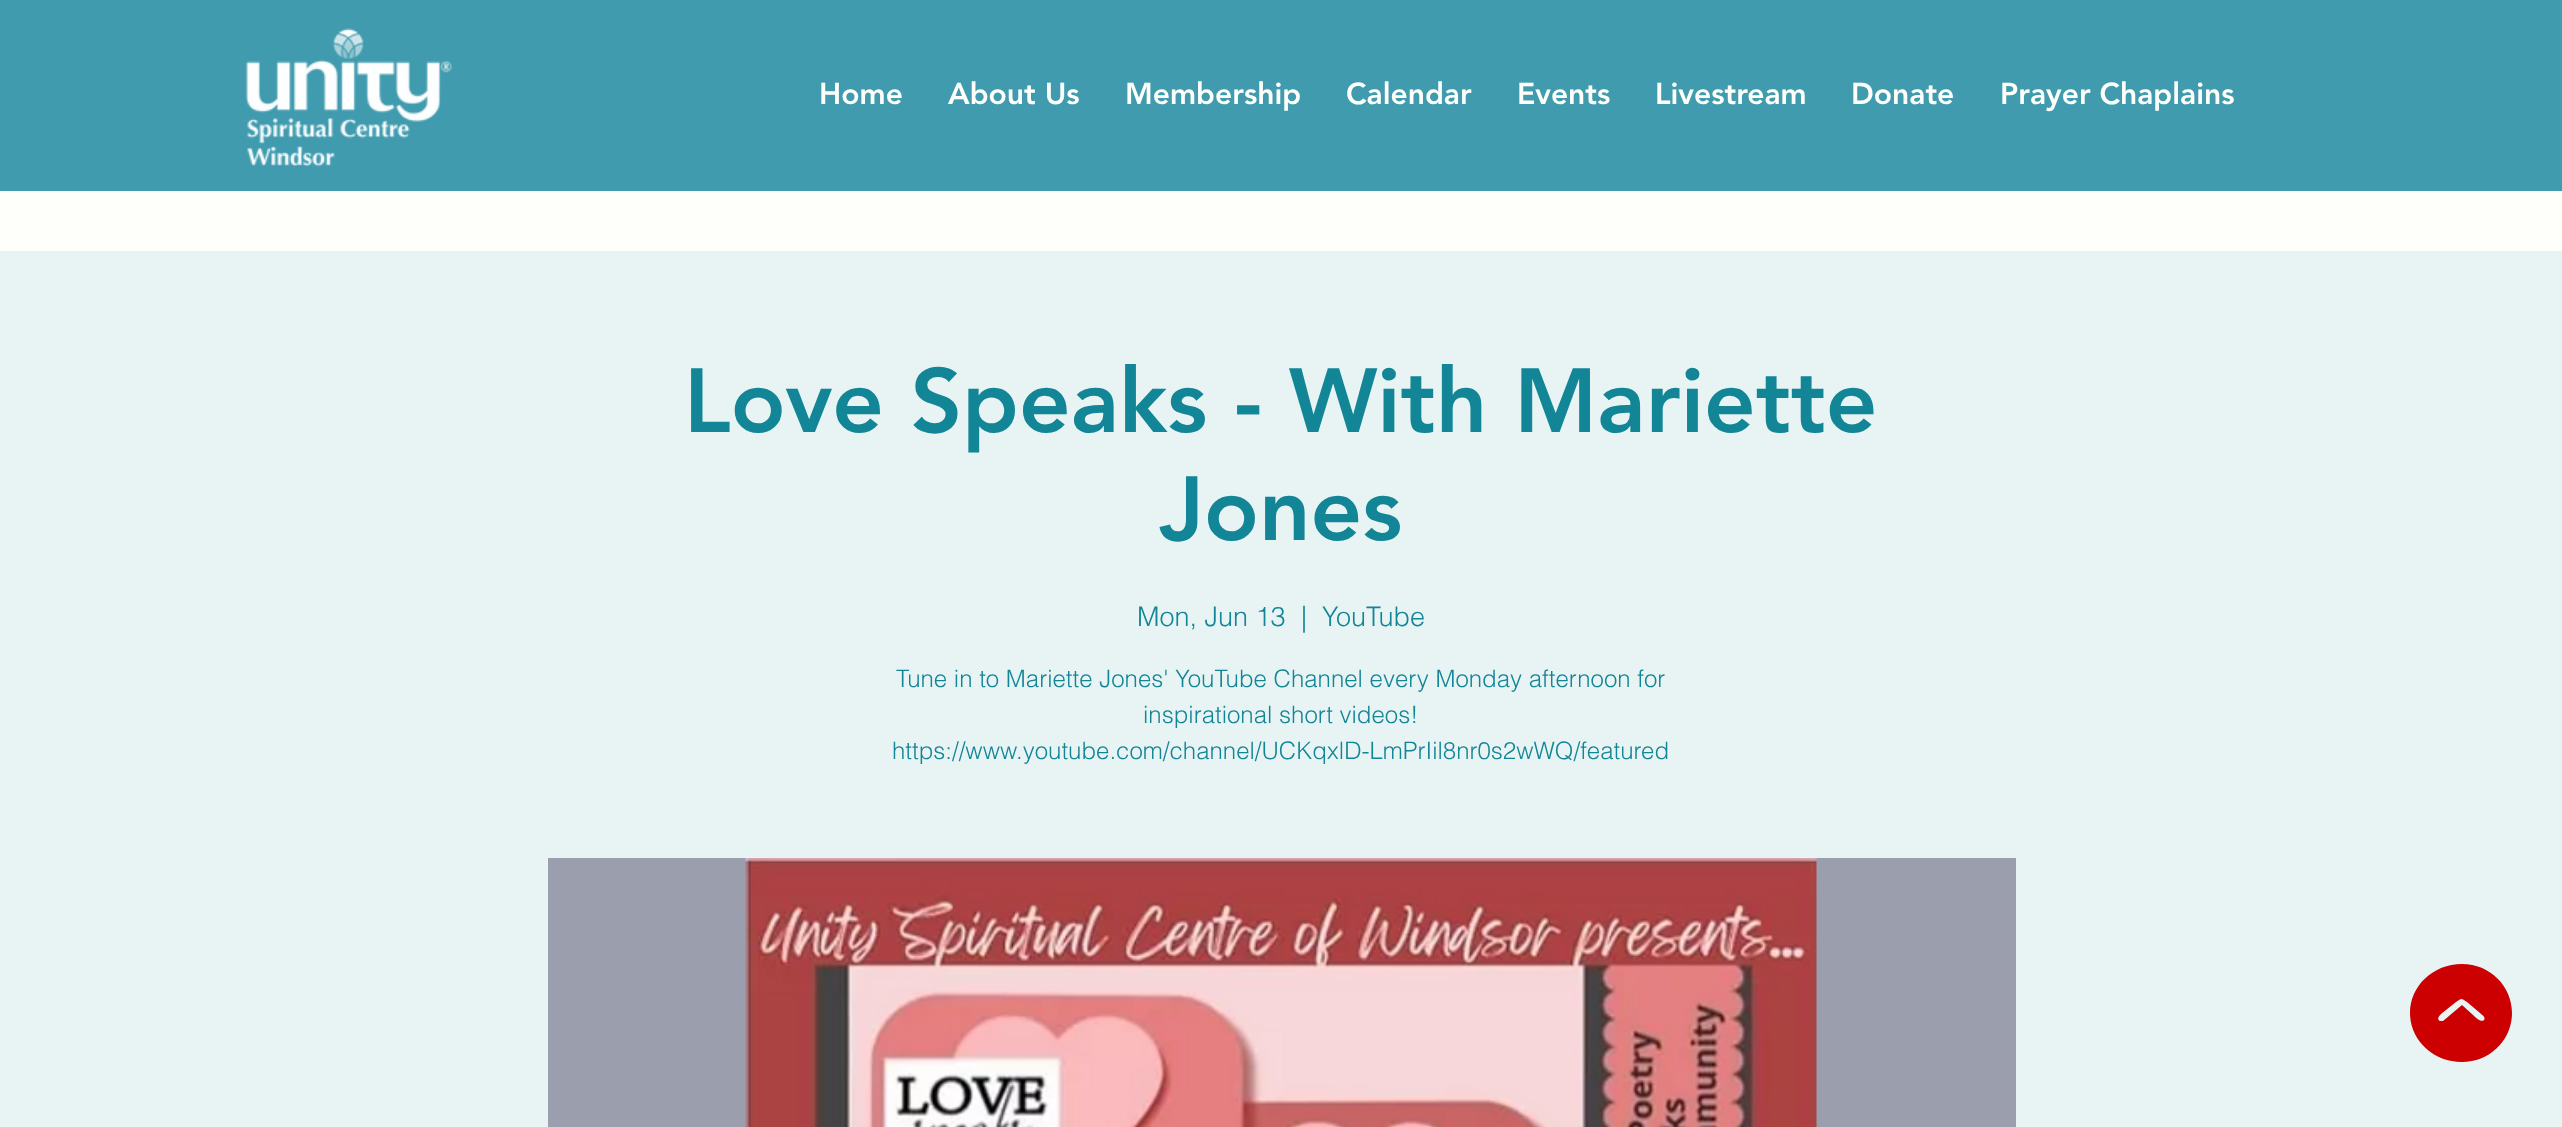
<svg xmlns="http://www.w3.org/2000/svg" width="2562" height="1127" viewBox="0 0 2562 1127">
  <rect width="100%" height="100%" fill="#fefffb"/>
  <path d="M0 0h2562v191H0z" fill="#409baf"/>
  <image x="245" y="28" width="207" height="139" href="img/1.png"/>
  <path d="M0 251h2562v876H0z" fill="#e8f4f4"/>
  <path d="M548 858h1468v269H548z" fill="#9b9eac"/>
  <image x="745" y="858" width="1072" height="269" href="img/2.png"/>
  <path d="M2462 964C2433 964 2410 986 2410 1013C2410 1040 2433 1062 2462 1062C2490 1062 2512 1040 2512 1013C2512 986 2490 964 2462 964ZM2484 1020C2481 1023 2475 1017 2473 1015L2462 1005L2443 1021H2440C2434 1018 2445 1011 2446 1010L2456 1002C2462 998 2461 998 2467 1002L2480 1013C2482 1015 2486 1017 2484 1020Z" fill="#c00"/>
  <g font-family="'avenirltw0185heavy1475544'" font-size="30" font-weight="900" fill="#fefffb">
    <text x="819" y="104">Home</text>
    <text x="948" y="104">About Us</text>
    <text x="1125" y="104">Membership</text>
    <text x="1346" y="104">Calendar</text>
    <text x="1517" y="104">Events</text>
    <text x="1655" y="104">Livestream</text>
    <text x="1851" y="104">Donate</text>
    <text x="2000" y="104">Prayer Chaplains</text>
  </g>
  <g font-family="'avenirltw0185heavy1475544'" font-size="90" font-weight="900" fill="#128697">
    <text x="684" y="432">Love Speaks - With Mariette</text>
    <text x="1159" y="540">Jones</text>
  </g>
  <g font-family="helvetica" font-size="27" font-weight="300" fill="#128697">
    <text x="1137" y="626">Mon, Jun 13</text>
    <text x="1301" y="626">|</text>
    <text x="1322" y="626">YouTube</text>
  </g>
  <g font-family="helvetica" font-size="24" font-weight="300" fill="#128697">
    <text x="896" y="687">Tune in to Mariette Jones' YouTube Channel every Monday afternoon for</text>
    <text x="1143" y="723">inspirational short videos!</text>
    <text x="892" y="759">https://www.youtube.com/channel/UCKqxlD-LmPrIil8nr0s2wWQ/featured</text>
  </g>
</svg>
